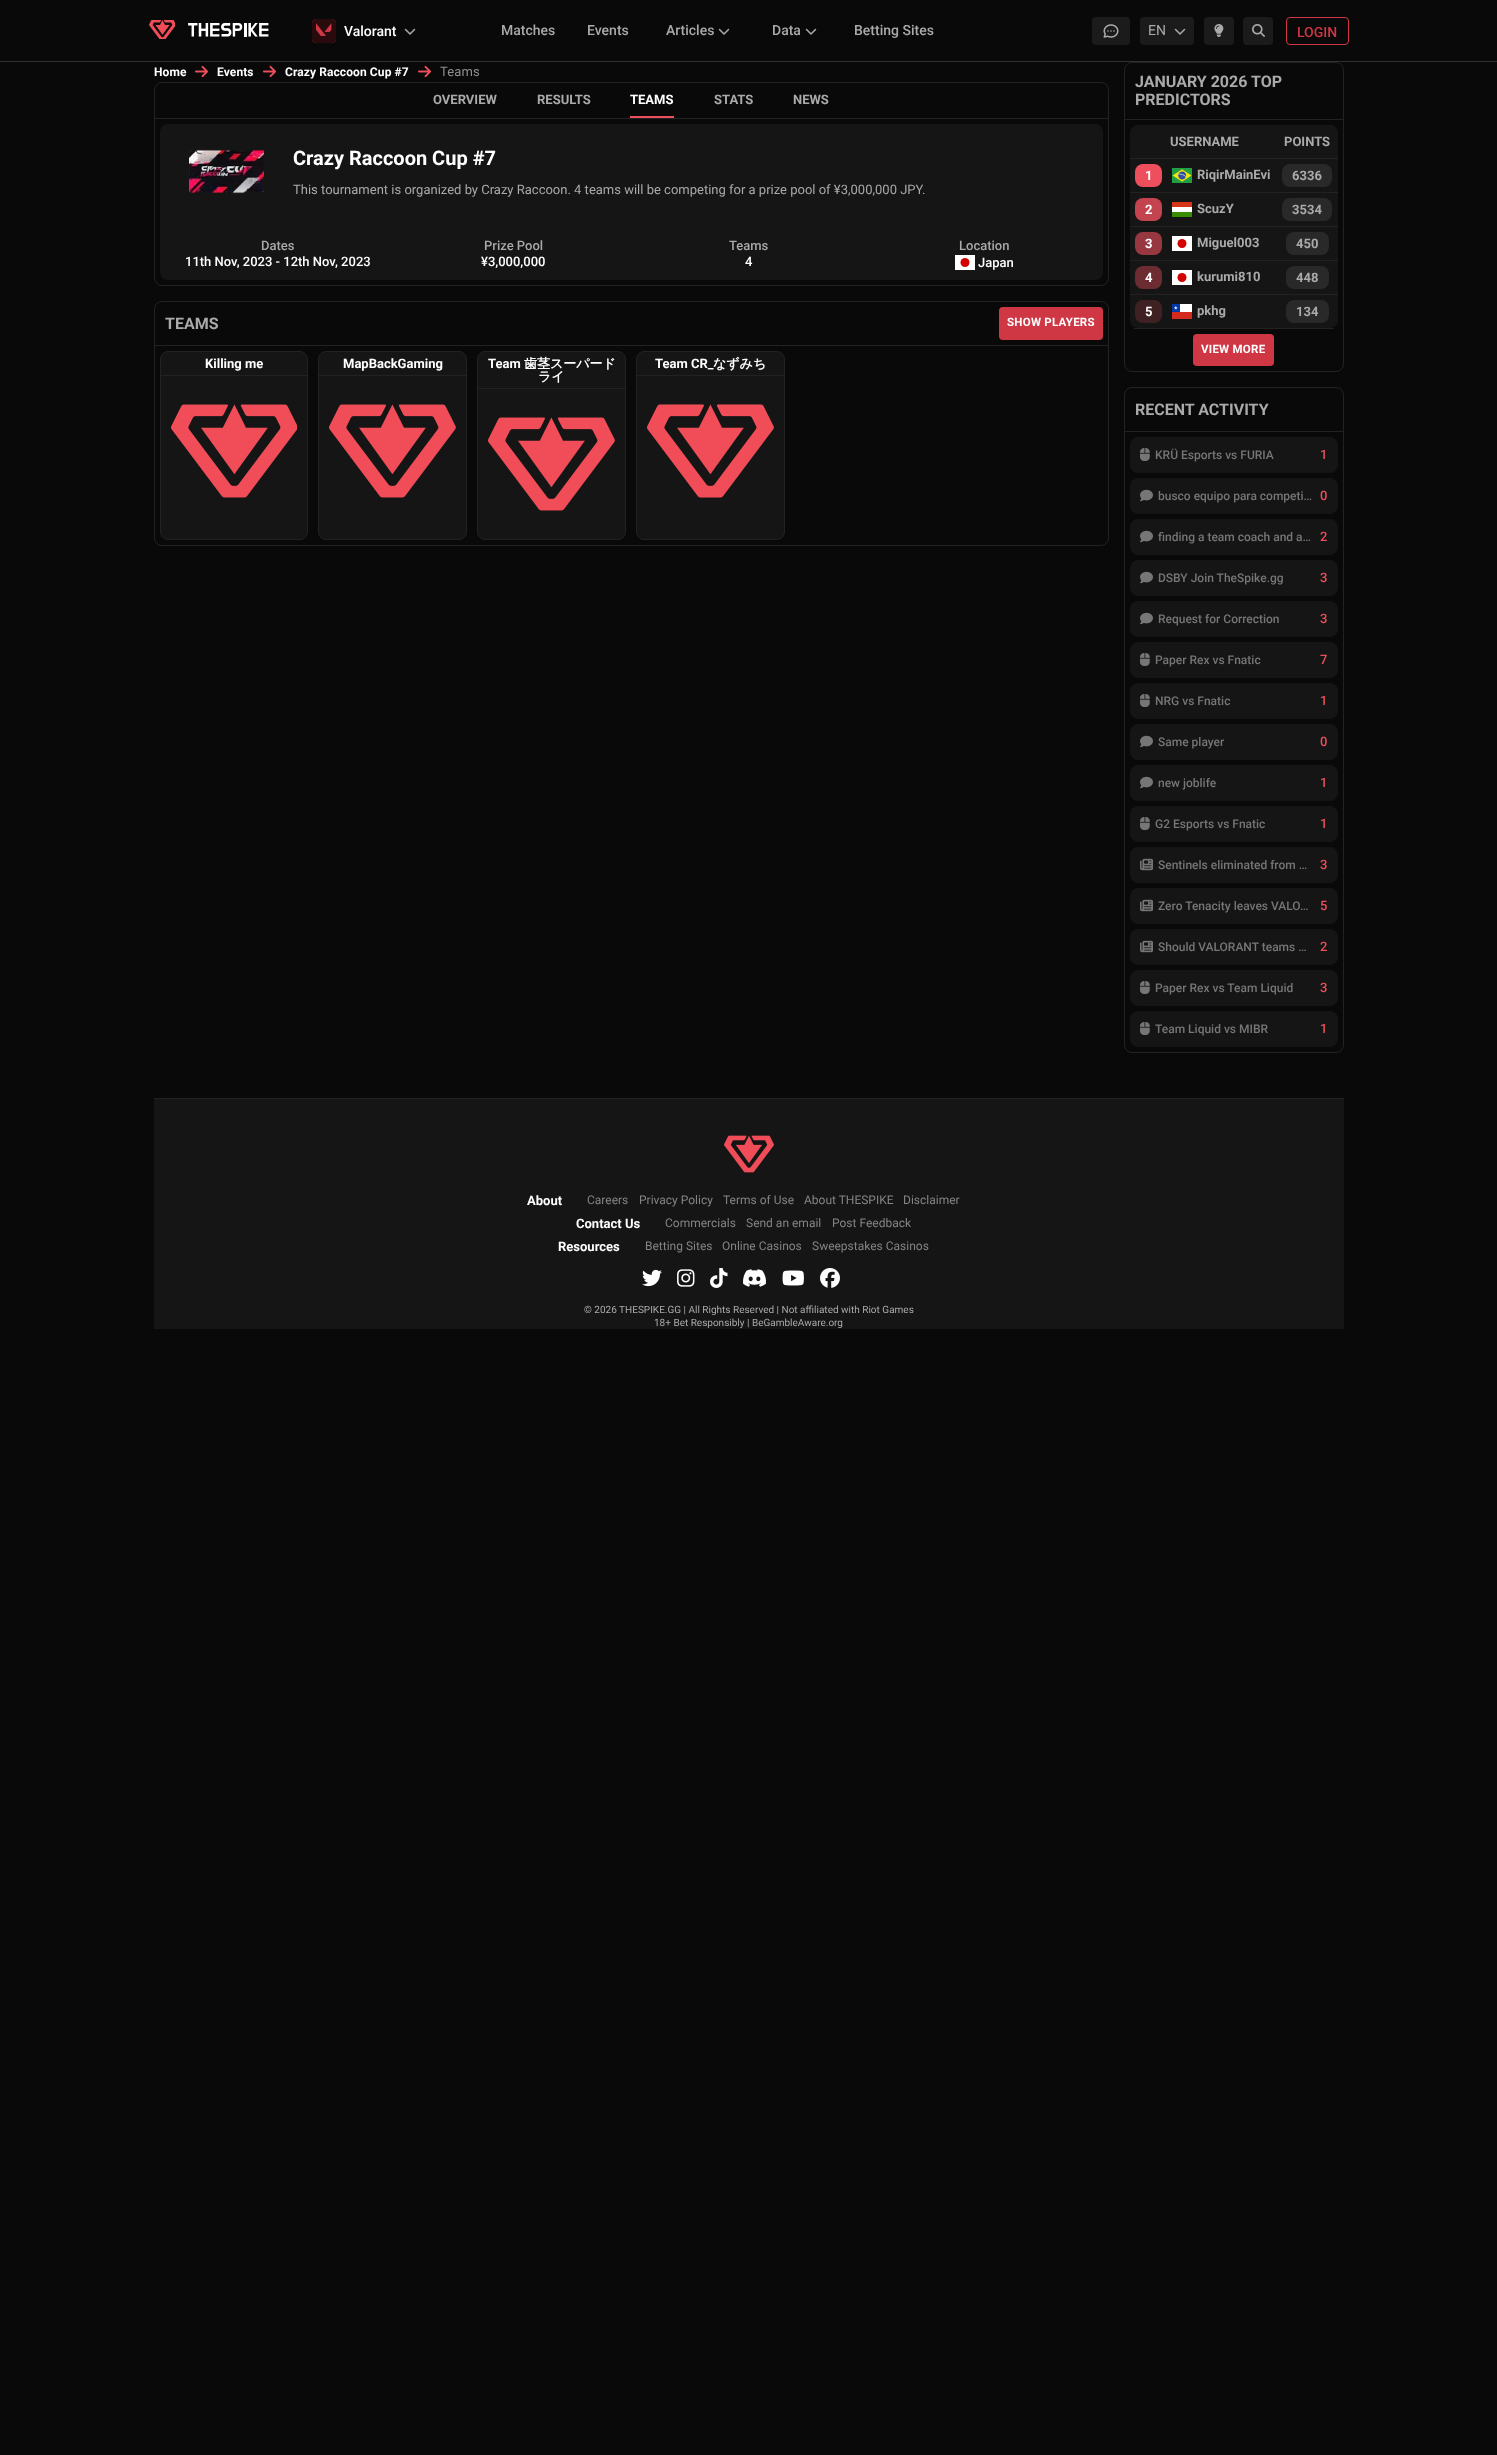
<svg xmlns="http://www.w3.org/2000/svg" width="1497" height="2455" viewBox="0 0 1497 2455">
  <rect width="100%" height="100%" fill="#090909"/>
  <path d="M0 61h1497v1H0z" fill="#303030"/>
  <image x="149" y="20" width="26" height="19" href="img/1.png"/>
  <image x="188" y="23" width="81" height="14" href="img/2.png"/>
  <image x="312" y="19" width="24" height="24" href="img/3.png"/>
  <image x="404" y="28" width="12" height="7" href="img/4.png"/>
  <image x="718" y="28" width="12" height="7" href="img/4.png"/>
  <image x="805" y="28" width="12" height="7" href="img/4.png"/>
  <rect x="1092" y="17" width="38" height="28" rx="4" fill="#1b1b1b"/>
  <image x="1103" y="24" width="16" height="14" href="img/5.png"/>
  <rect x="1140" y="17" width="54" height="28" rx="4" fill="#1b1b1b"/>
  <image x="1174" y="28" width="12" height="7" href="img/6.png"/>
  <rect x="1204" y="17" width="30" height="28" rx="4" fill="#1b1b1b"/>
  <image x="1214" y="24" width="10" height="13" href="img/7.png"/>
  <rect x="1243" y="17" width="30" height="28" rx="4" fill="#1b1b1b"/>
  <image x="1252" y="24" width="13" height="13" href="img/8.png"/>
  <rect x="1286.5" y="17.5" width="62" height="27" rx="3.5" fill="none" stroke="#cf3744"/>
  <image x="195" y="65" width="13" height="13" href="img/9.png"/>
  <image x="263" y="65" width="13" height="13" href="img/9.png"/>
  <image x="418" y="65" width="13" height="13" href="img/9.png"/>
  <rect x="154.5" y="82.5" width="954" height="203" rx="7.5" fill="none" stroke="#222"/>
  <path d="M155 118h953v1H155z" fill="#222"/>
  <path d="M630 116h44v2H630z" fill="#ee4f5c"/>
  <rect x="160" y="124" width="943" height="156" rx="8" fill="#151515"/>
  <image x="189" y="149" width="75" height="45" href="img/10.png"/>
  <path d="M955 255h20v15H955z" fill="#fff"/>
  <circle cx="965" cy="262.5" r="4.5" fill="#d30000"/>
  <rect x="154.5" y="301.5" width="954" height="244" rx="7.5" fill="none" stroke="#222"/>
  <rect x="999" y="307" width="104" height="33" rx="4" fill="#cf3744"/>
  <path d="M155 345h953v1H155z" fill="#222"/>
  <rect x="160.5" y="351.5" width="147" height="188" rx="7.5" fill="#151515" stroke="#222"/>
  <path d="M161 375h146v1H161z" fill="#222"/>
  <image x="171" y="404" width="126" height="94" href="img/11.png"/>
  <rect x="318.5" y="351.5" width="148" height="188" rx="7.5" fill="#151515" stroke="#222"/>
  <path d="M319 375h147v1H319z" fill="#222"/>
  <image x="329" y="404" width="127" height="94" href="img/12.png"/>
  <rect x="477.5" y="351.5" width="148" height="188" rx="7.5" fill="#151515" stroke="#222"/>
  <path d="M478 388h147v1H478z" fill="#222"/>
  <image x="488" y="417" width="127" height="94" href="img/12.png"/>
  <rect x="636.5" y="351.5" width="148" height="188" rx="7.5" fill="#151515" stroke="#222"/>
  <path d="M637 375h147v1H637z" fill="#222"/>
  <image x="647" y="404" width="127" height="94" href="img/13.png"/>
  <rect x="1124.5" y="62.5" width="219" height="309" rx="7.5" fill="none" stroke="#222"/>
  <path d="M1125 119h218v1H1125z" fill="#222"/>
  <path d="M1138 125H1330C1334.5 125 1338 128.5 1338 133V158H1130V133C1130 128.5 1133.5 125 1138 125Z" fill="#151515"/>
  <path d="M1130 158h208v1H1130z" fill="#222"/>
  <path d="M1130 159h208v33H1130z" fill="#151515"/>
  <path d="M1130 192h208v1H1130z" fill="#222"/>
  <rect x="1135" y="164" width="27" height="23" rx="8" fill="#ee4f5c"/>
  <image x="1172" y="168" width="20" height="15" href="img/14.png"/>
  <rect x="1282" y="164" width="50" height="23" rx="8" fill="#292929"/>
  <path d="M1130 193h208v33H1130z" fill="#151515"/>
  <path d="M1130 226h208v1H1130z" fill="#222"/>
  <rect x="1135" y="198" width="27" height="23" rx="8" fill="#c3434e"/>
  <path d="M1172 207h20v5H1172z" fill="#fff"/>
  <path d="M1172 212h20v5H1172z" fill="#388d00"/>
  <path d="M1172 202h20v5H1172z" fill="#d43516"/>
  <rect x="1282" y="198" width="50" height="23" rx="8" fill="#292929"/>
  <path d="M1130 227h208v33H1130z" fill="#151515"/>
  <path d="M1130 260h208v1H1130z" fill="#222"/>
  <rect x="1135" y="232" width="27" height="23" rx="8" fill="#973840"/>
  <path d="M1172 236h20v15H1172z" fill="#fff"/>
  <circle cx="1182" cy="243.5" r="4.5" fill="#d30000"/>
  <rect x="1286" y="232" width="43" height="23" rx="8" fill="#292929"/>
  <path d="M1130 261h208v33H1130z" fill="#151515"/>
  <path d="M1130 294h208v1H1130z" fill="#222"/>
  <rect x="1135" y="266" width="27" height="23" rx="8" fill="#6c2c31"/>
  <path d="M1172 270h20v15H1172z" fill="#fff"/>
  <circle cx="1182" cy="277.5" r="4.5" fill="#d30000"/>
  <rect x="1286" y="266" width="43" height="23" rx="8" fill="#292929"/>
  <path d="M1130 295H1338V321C1338 325 1334 328 1330 328H1138C1134 328 1130 325 1130 321Z" fill="#151515"/>
  <path d="M1134 328h200v1H1134z" fill="#222"/>
  <rect x="1135" y="300" width="27" height="23" rx="8" fill="#402123"/>
  <image x="1172" y="304" width="20" height="15" href="img/15.png"/>
  <rect x="1286" y="300" width="43" height="23" rx="8" fill="#292929"/>
  <rect x="1193" y="334" width="81" height="32" rx="4" fill="#cf3744"/>
  <rect x="1124.5" y="387.5" width="219" height="665" rx="7.5" fill="none" stroke="#222"/>
  <path d="M1125 431h218v1H1125z" fill="#222"/>
  <rect x="1130" y="437" width="208" height="36" rx="8" fill="#151515"/>
  <image x="1140" y="448" width="10" height="13" href="img/16.png"/>
  <rect x="1130" y="478" width="208" height="36" rx="8" fill="#151515"/>
  <image x="1140" y="489" width="13" height="13" href="img/17.png"/>
  <rect x="1130" y="519" width="208" height="36" rx="8" fill="#151515"/>
  <image x="1140" y="530" width="13" height="13" href="img/17.png"/>
  <rect x="1130" y="560" width="208" height="36" rx="8" fill="#151515"/>
  <image x="1140" y="571" width="13" height="13" href="img/17.png"/>
  <rect x="1130" y="601" width="208" height="36" rx="8" fill="#151515"/>
  <image x="1140" y="612" width="13" height="13" href="img/17.png"/>
  <rect x="1130" y="642" width="208" height="36" rx="8" fill="#151515"/>
  <image x="1140" y="653" width="10" height="13" href="img/16.png"/>
  <rect x="1130" y="683" width="208" height="36" rx="8" fill="#151515"/>
  <image x="1140" y="694" width="10" height="13" href="img/16.png"/>
  <rect x="1130" y="724" width="208" height="36" rx="8" fill="#151515"/>
  <image x="1140" y="735" width="13" height="13" href="img/17.png"/>
  <rect x="1130" y="765" width="208" height="36" rx="8" fill="#151515"/>
  <image x="1140" y="776" width="13" height="13" href="img/17.png"/>
  <rect x="1130" y="806" width="208" height="36" rx="8" fill="#151515"/>
  <image x="1140" y="817" width="10" height="13" href="img/16.png"/>
  <rect x="1130" y="847" width="208" height="36" rx="8" fill="#151515"/>
  <image x="1140" y="858" width="13" height="13" href="img/18.png"/>
  <rect x="1130" y="888" width="208" height="36" rx="8" fill="#151515"/>
  <image x="1140" y="899" width="13" height="13" href="img/18.png"/>
  <rect x="1130" y="929" width="208" height="36" rx="8" fill="#151515"/>
  <image x="1140" y="940" width="13" height="13" href="img/18.png"/>
  <rect x="1130" y="970" width="208" height="36" rx="8" fill="#151515"/>
  <image x="1140" y="981" width="10" height="13" href="img/16.png"/>
  <rect x="1130" y="1011" width="208" height="36" rx="8" fill="#151515"/>
  <image x="1140" y="1022" width="10" height="13" href="img/16.png"/>
  <path d="M154 1099h1190v230H154z" fill="#151515"/>
  <path d="M154 1098h1190v1H154z" fill="#222"/>
  <image x="724" y="1135" width="50" height="38" href="img/19.png"/>
  <image x="642" y="1269" width="20" height="18" href="img/20.png"/>
  <image x="677" y="1269" width="18" height="18" href="img/21.png"/>
  <image x="710" y="1268" width="18" height="20" href="img/22.png"/>
  <image x="743" y="1269" width="23" height="18" href="img/23.png"/>
  <image x="782" y="1270" width="22" height="16" href="img/24.png"/>
  <image x="820" y="1268" width="20" height="20" href="img/25.png"/>
  <text x="344" y="36" font-family="Roboto" font-size="14" font-weight="500" fill="#fff">Valorant</text>
  <g font-family="Roboto" font-size="14" font-weight="500" fill="#aaa">
    <text x="501" y="35">Matches</text>
    <text x="587" y="35">Events</text>
    <text x="666" y="35">Articles</text>
    <text x="772" y="35">Data</text>
    <text x="854" y="35">Betting Sites</text>
  </g>
  <text x="1148" y="35" font-family="Roboto" font-size="14" fill="#aaa">EN</text>
  <text x="1297" y="37" font-family="Roboto" font-size="14" font-weight="500" fill="#cf3744">LOGIN</text>
  <g font-family="Roboto" font-size="12" font-weight="bold" letter-spacing="0.1" fill="#fff">
    <text x="154" y="76">Home</text>
    <text x="217" y="76">Events</text>
    <text x="285" y="76">Crazy Raccoon Cup #7</text>
  </g>
  <text x="440" y="76" font-family="Roboto" font-size="13" letter-spacing="0.1" fill="#8e8e8e">Teams</text>
  <g font-family="Roboto" font-size="13" font-weight="bold" fill="#aaa">
    <text x="433" y="104">OVERVIEW</text>
    <text x="537" y="104">RESULTS</text>
  </g>
  <text x="630" y="104" font-family="Roboto" font-size="13" font-weight="bold" fill="#fff">TEAMS</text>
  <g font-family="Roboto" font-size="13" font-weight="bold" fill="#aaa">
    <text x="714" y="104">STATS</text>
    <text x="793" y="104">NEWS</text>
  </g>
  <text x="293" y="165" font-family="Roboto" font-size="20" font-weight="bold" fill="#fff">Crazy Raccoon Cup #7</text>
  <text x="293" y="194" font-family="Roboto" font-size="13" fill="#aaa">This tournament is organized by Crazy Raccoon. 4 teams will be competing for a prize pool of ¥3,000,000 JPY.</text>
  <text x="261" y="250" font-family="Roboto" font-size="13" font-weight="500" fill="#aaa">Dates</text>
  <text x="185" y="266" font-family="Roboto" font-size="13" font-weight="500" fill="#fff">11th Nov, 2023 - 12th Nov, 2023</text>
  <text x="484" y="250" font-family="Roboto" font-size="13" font-weight="500" fill="#aaa">Prize Pool</text>
  <text x="481" y="266" font-family="Roboto" font-size="13" font-weight="500" fill="#fff">¥3,000,000</text>
  <text x="729" y="250" font-family="Roboto" font-size="13" font-weight="500" fill="#aaa">Teams</text>
  <text x="745" y="266" font-family="Roboto" font-size="13" font-weight="500" fill="#fff">4</text>
  <text x="959" y="250" font-family="Roboto" font-size="13" font-weight="500" fill="#aaa">Location</text>
  <text x="978" y="267" font-family="Roboto" font-size="13" font-weight="500" fill="#fff">Japan</text>
  <text x="165" y="329" font-family="Roboto" font-size="16" font-weight="bold" fill="#aaa">TEAMS</text>
  <text x="1007" y="326" font-family="Roboto" font-size="11.5" font-weight="bold" letter-spacing="0.25" fill="#fff">SHOW PLAYERS</text>
  <g font-family="Roboto" font-size="13" font-weight="bold" fill="#fff">
    <text x="205" y="368">Killing me</text>
    <text x="343" y="368">MapBackGaming</text>
    <text x="488" y="368">Team</text>
  </g>
  <g font-family="WenQuanYi Zen Hei" font-size="13" font-weight="bold" fill="#fff">
    <text x="524" y="368">歯茎スーパード</text>
    <text x="538" y="381">ライ</text>
  </g>
  <text x="655" y="368" font-family="Roboto" font-size="13" font-weight="bold" fill="#fff">Team CR_</text>
  <text x="713" y="368" font-family="WenQuanYi Zen Hei" font-size="13" font-weight="bold" fill="#fff">なずみち</text>
  <g font-family="Roboto" font-size="16" font-weight="bold" fill="#aaa">
    <text x="1135" y="87">JANUARY 2026 TOP</text>
    <text x="1135" y="105">PREDICTORS</text>
  </g>
  <g font-family="Roboto" font-size="13" font-weight="bold" fill="#aaa">
    <text x="1170" y="146">USERNAME</text>
    <text x="1284" y="146">POINTS</text>
  </g>
  <text x="1145" y="180" font-family="Roboto" font-size="13" font-weight="bold" fill="#fff">1</text>
  <g font-family="Roboto" font-size="13" font-weight="bold" fill="#aaa">
    <text x="1197" y="179">RiqirMainEvi</text>
    <text x="1292" y="180">6336</text>
  </g>
  <text x="1145" y="214" font-family="Roboto" font-size="13" font-weight="bold" fill="#fff">2</text>
  <g font-family="Roboto" font-size="13" font-weight="bold" fill="#aaa">
    <text x="1197" y="213">ScuzY</text>
    <text x="1292" y="214">3534</text>
  </g>
  <text x="1145" y="248" font-family="Roboto" font-size="13" font-weight="bold" fill="#fff">3</text>
  <g font-family="Roboto" font-size="13" font-weight="bold" fill="#aaa">
    <text x="1197" y="247">Miguel003</text>
    <text x="1296" y="248">450</text>
  </g>
  <text x="1145" y="282" font-family="Roboto" font-size="13" font-weight="bold" fill="#fff">4</text>
  <g font-family="Roboto" font-size="13" font-weight="bold" fill="#aaa">
    <text x="1197" y="281">kurumi810</text>
    <text x="1296" y="282">448</text>
  </g>
  <text x="1145" y="316" font-family="Roboto" font-size="13" font-weight="bold" fill="#fff">5</text>
  <g font-family="Roboto" font-size="13" font-weight="bold" fill="#aaa">
    <text x="1197" y="315">pkhg</text>
    <text x="1296" y="316">134</text>
  </g>
  <text x="1201" y="353" font-family="Roboto" font-size="11.5" font-weight="bold" letter-spacing="0.25" fill="#fff">VIEW MORE</text>
  <text x="1135" y="415" font-family="Roboto" font-size="16" font-weight="bold" fill="#aaa">RECENT ACTIVITY</text>
  <text x="1155" y="459" font-family="Roboto" font-size="12" font-weight="500" fill="#767676">KRÜ Esports vs FURIA</text>
  <text x="1320" y="459" font-family="Roboto" font-size="13" font-weight="500" fill="#ee4f5c">1</text>
  <text x="1158" y="500" font-family="Roboto" font-size="12" font-weight="500" fill="#767676">busco equipo para competi…</text>
  <text x="1320" y="500" font-family="Roboto" font-size="13" font-weight="500" fill="#ee4f5c">0</text>
  <text x="1158" y="541" font-family="Roboto" font-size="12" font-weight="500" fill="#767676">finding a team coach and a…</text>
  <text x="1320" y="541" font-family="Roboto" font-size="13" font-weight="500" fill="#ee4f5c">2</text>
  <text x="1158" y="582" font-family="Roboto" font-size="12" font-weight="500" fill="#767676">DSBY Join TheSpike.gg</text>
  <text x="1320" y="582" font-family="Roboto" font-size="13" font-weight="500" fill="#ee4f5c">3</text>
  <text x="1158" y="623" font-family="Roboto" font-size="12" font-weight="500" fill="#767676">Request for Correction</text>
  <text x="1320" y="623" font-family="Roboto" font-size="13" font-weight="500" fill="#ee4f5c">3</text>
  <text x="1155" y="664" font-family="Roboto" font-size="12" font-weight="500" fill="#767676">Paper Rex vs Fnatic</text>
  <text x="1320" y="664" font-family="Roboto" font-size="13" font-weight="500" fill="#ee4f5c">7</text>
  <text x="1155" y="705" font-family="Roboto" font-size="12" font-weight="500" fill="#767676">NRG vs Fnatic</text>
  <text x="1320" y="705" font-family="Roboto" font-size="13" font-weight="500" fill="#ee4f5c">1</text>
  <text x="1158" y="746" font-family="Roboto" font-size="12" font-weight="500" fill="#767676">Same player</text>
  <text x="1320" y="746" font-family="Roboto" font-size="13" font-weight="500" fill="#ee4f5c">0</text>
  <text x="1158" y="787" font-family="Roboto" font-size="12" font-weight="500" fill="#767676">new joblife</text>
  <text x="1320" y="787" font-family="Roboto" font-size="13" font-weight="500" fill="#ee4f5c">1</text>
  <text x="1155" y="828" font-family="Roboto" font-size="12" font-weight="500" fill="#767676">G2 Esports vs Fnatic</text>
  <text x="1320" y="828" font-family="Roboto" font-size="13" font-weight="500" fill="#ee4f5c">1</text>
  <text x="1158" y="869" font-family="Roboto" font-size="12" font-weight="500" fill="#767676">Sentinels eliminated from …</text>
  <text x="1320" y="869" font-family="Roboto" font-size="13" font-weight="500" fill="#ee4f5c">3</text>
  <text x="1158" y="910" font-family="Roboto" font-size="12" font-weight="500" fill="#767676">Zero Tenacity leaves VALO…</text>
  <text x="1320" y="910" font-family="Roboto" font-size="13" font-weight="500" fill="#ee4f5c">5</text>
  <text x="1158" y="951" font-family="Roboto" font-size="12" font-weight="500" fill="#767676">Should VALORANT teams …</text>
  <text x="1320" y="951" font-family="Roboto" font-size="13" font-weight="500" fill="#ee4f5c">2</text>
  <text x="1155" y="992" font-family="Roboto" font-size="12" font-weight="500" fill="#767676">Paper Rex vs Team Liquid</text>
  <text x="1320" y="992" font-family="Roboto" font-size="13" font-weight="500" fill="#ee4f5c">3</text>
  <text x="1155" y="1033" font-family="Roboto" font-size="12" font-weight="500" fill="#767676">Team Liquid vs MIBR</text>
  <text x="1320" y="1033" font-family="Roboto" font-size="13" font-weight="500" fill="#ee4f5c">1</text>
  <text x="527" y="1205" font-family="Roboto" font-size="13" font-weight="bold" fill="#fff">About</text>
  <g font-family="Roboto" font-size="12" fill="#848484">
    <text x="587" y="1204">Careers</text>
    <text x="639" y="1204">Privacy Policy</text>
    <text x="723" y="1204">Terms of Use</text>
    <text x="804" y="1204">About THESPIKE</text>
    <text x="903" y="1204">Disclaimer</text>
  </g>
  <text x="576" y="1228" font-family="Roboto" font-size="13" font-weight="bold" fill="#fff">Contact Us</text>
  <g font-family="Roboto" font-size="12" fill="#848484">
    <text x="665" y="1227">Commercials</text>
    <text x="746" y="1227">Send an email</text>
    <text x="832" y="1227">Post Feedback</text>
  </g>
  <text x="558" y="1251" font-family="Roboto" font-size="13" font-weight="bold" fill="#fff">Resources</text>
  <g font-family="Roboto" font-size="12" fill="#848484">
    <text x="645" y="1250">Betting Sites</text>
    <text x="722" y="1250">Online Casinos</text>
    <text x="812" y="1250">Sweepstakes Casinos</text>
  </g>
  <g font-family="Roboto" font-size="10" fill="#aaa">
    <text x="584" y="1313">© 2026 THESPIKE.GG | All Rights Reserved | Not affiliated with Riot Games</text>
    <text x="654" y="1326">18+ Bet Responsibly | BeGambleAware.org</text>
  </g>
</svg>
